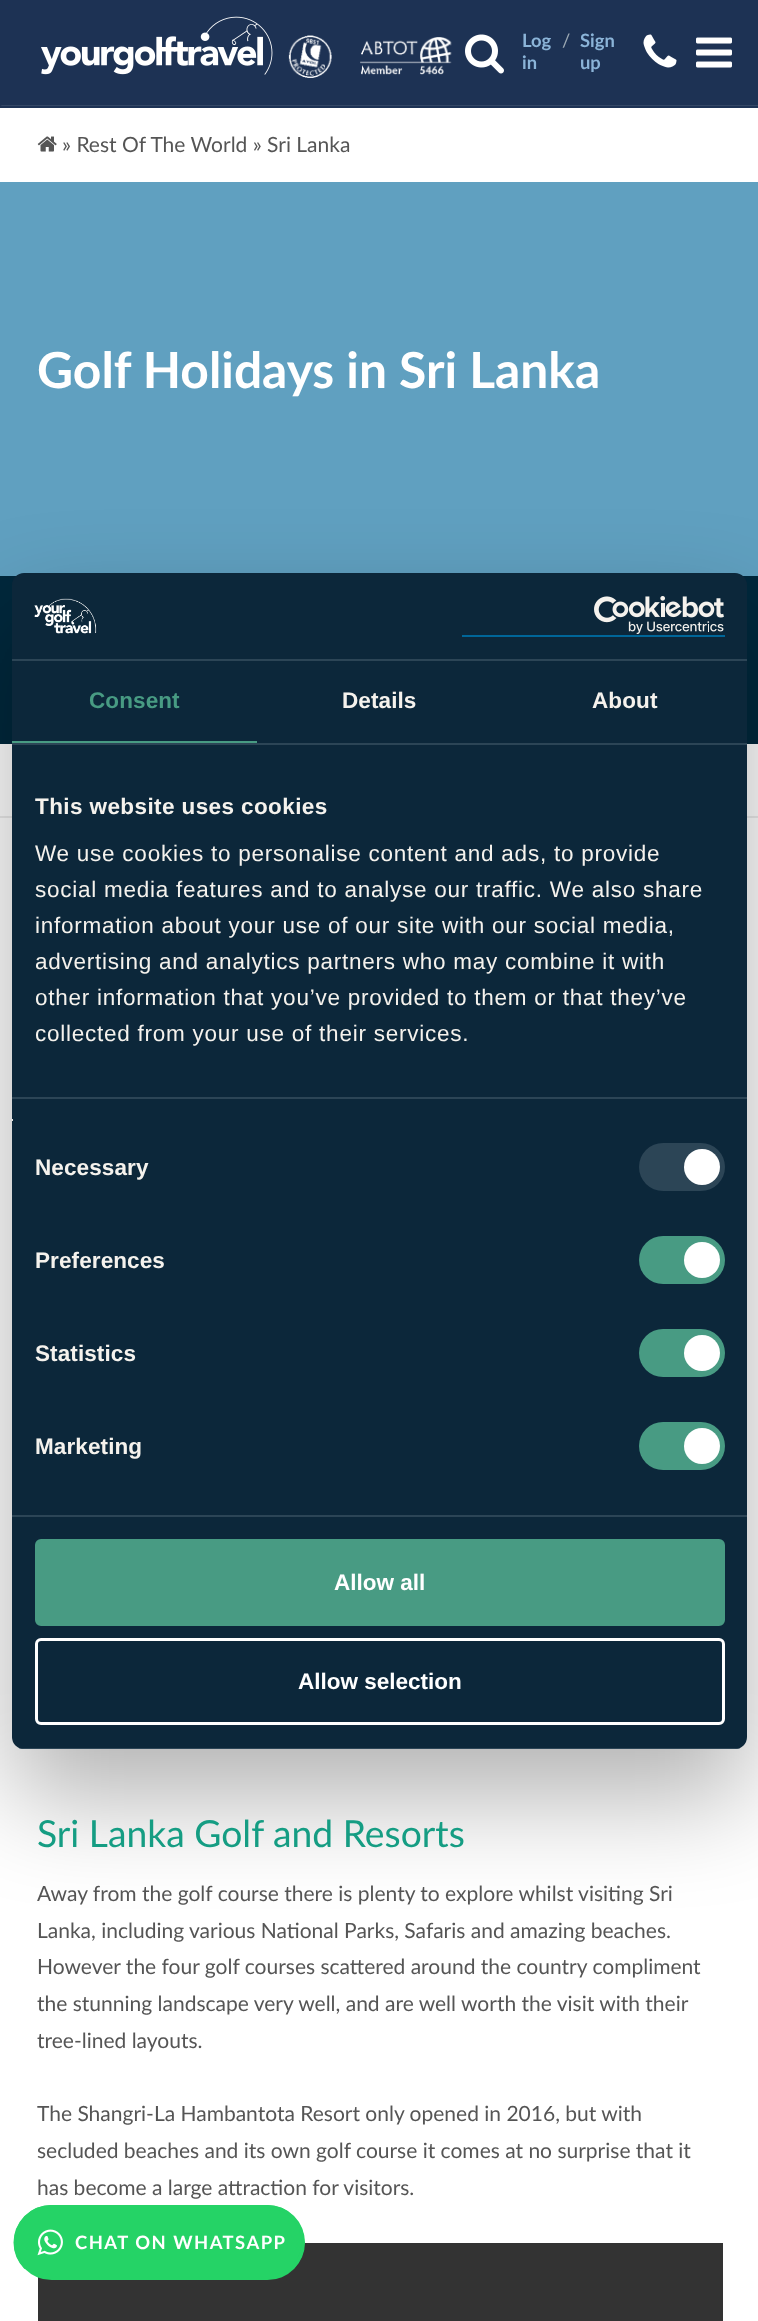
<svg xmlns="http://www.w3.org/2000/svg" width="758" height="2321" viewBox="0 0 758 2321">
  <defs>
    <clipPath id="clip1"><rect x="12" y="573" width="735" height="1176" rx="12"/></clipPath>
  </defs>
  <rect width="100%" height="100%" fill="#fff"/>
  <path d="M0 0h758v108H0z" fill="#1d3254"/>
  <image x="41" y="16" width="232" height="59" href="img/1.png"/>
  <image x="288" y="35" width="164" height="43" href="img/2.png"/>
  <image x="465" y="34" width="39" height="40" href="img/3.png"/>
  <image x="643" y="34" width="34" height="34" href="img/4.png"/>
  <image x="696" y="37" width="36" height="31" href="img/5.png"/>
  <path d="M0 105H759L758 106H2Z" fill="#344765"/>
  <image x="37" y="136" width="20" height="16" href="img/6.png"/>
  <path d="M0 182h758v394H0z" fill="#60a0c0"/>
  <path d="M0 576h758v168H0z" fill="#00283c"/>
  <path d="M0 816h758v2H0z" fill="#ebebeb"/>
  <path d="M38 2243h685v78H38z" fill="#333"/>
  <rect x="12" y="621" width="735" height="1176" rx="12" fill="#0000004d" filter="blur(51px)"/>
  <rect x="12" y="573" width="735" height="1176" rx="12" fill="#0c273a"/>
  <path d="M12 659h735v2H12z" fill="#2c4556"/>
  <image x="34" y="598" width="63" height="36" href="img/7.png"/>
  <path d="M462 635h263v2H462z" fill="#069"/>
  <image x="594" y="596" width="130" height="38" href="img/8.png"/>
  <path d="M12 743h735v2H12z" fill="#2c4556"/>
  <path d="M12 741h245v2H12z" fill="#489b83"/>
  <path d="M12 1097h735v2H12z" fill="#2c4556"/>
  <path d="M12 1515h735v2H12z" fill="#2c4556"/>
  <path d="M12 1119h1v2H12z" fill="#e5e5e5"/>
  <rect x="639" y="1143" width="86" height="48" rx="24" fill="#2c4556"/>
  <circle cx="702" cy="1167" r="18" fill="#fff"/>
  <rect x="639" y="1236" width="86" height="48" rx="24" fill="#489b83"/>
  <circle cx="702" cy="1260" r="18" fill="#fff"/>
  <rect x="639" y="1329" width="86" height="48" rx="24" fill="#489b83"/>
  <circle cx="702" cy="1353" r="18" fill="#fff"/>
  <rect x="639" y="1422" width="86" height="48" rx="24" fill="#489b83"/>
  <circle cx="702" cy="1446" r="18" fill="#fff"/>
  <g clip-path="url(#clip1)">
    <path d="M12 1748h735v1H12z" fill="#2c4556"/>
  </g>
  <rect x="36.5" y="1540.5" width="687" height="84" rx="4.5" fill="#489b83" stroke="#489b83" stroke-width="3"/>
  <rect x="36.5" y="1639.5" width="687" height="84" rx="4.5" fill="none" stroke="#fff" stroke-width="3"/>
  <rect x="14" y="2205" width="291" height="75" rx="37.5" fill="#25d366"/>
  <path d="M25.5 2268C19 2261 15 2252 15 2242.5C15 2233 19 2224 25.5 2217C32.5 2210.5 41.5 2206.5 51 2206.5H267C276.5 2206.5 285.5 2210.5 292.5 2217C299 2224 303 2233 303 2242.5C303 2252 299 2261 292.5 2268" fill="none" stroke="#25d366" stroke-width="3"/>
  <image x="37" y="2229" width="26" height="27" href="img/9.png"/>
  <g font-family="Lato" font-size="18.4" font-weight="bold" fill="#8bb4d8">
    <text x="522" y="47">Log</text>
    <text x="522" y="69">in</text>
  </g>
  <text x="562" y="47" font-family="Lato" font-size="18.4" fill="#9ba8b3">/</text>
  <g font-family="Lato" font-size="18.4" font-weight="bold" fill="#8bb4d8">
    <text x="580" y="47">Sign</text>
    <text x="580" y="69">up</text>
  </g>
  <text x="62" y="152" font-family="Lato" font-size="21" fill="#555">» Rest Of The World » Sri Lanka</text>
  <text x="37" y="388" font-family="Lato" font-size="49.75" font-weight="bold" fill="#fff">Golf Holidays in Sri Lanka</text>
  <text x="37" y="1847" font-family="Lato" font-size="37.25" fill="#159d83">Sri Lanka Golf and Resorts</text>
  <g font-family="Lato" font-size="21" fill="#555">
    <text x="37" y="1901">Away from the golf course there is plenty to explore whilst visiting Sri</text>
    <text x="37" y="1938">Lanka, including various National Parks, Safaris and amazing beaches.</text>
    <text x="37" y="1974">However the four golf courses scattered around the country compliment</text>
    <text x="37" y="2011">the stunning landscape very well, and are well worth the visit with their</text>
    <text x="37" y="2048">tree-lined layouts.</text>
    <text x="37" y="2121">The Shangri-La Hambantota Resort only opened in 2016, but with</text>
    <text x="37" y="2158">secluded beaches and its own golf course it comes at no surprise that it</text>
    <text x="37" y="2195">has become a large attraction for visitors.</text>
  </g>
  <text x="89" y="708" font-family="Liberation Sans" font-size="22.5" font-weight="bold" letter-spacing="0.1" fill="#489b83">Consent</text>
  <g font-family="Liberation Sans" font-size="22.5" font-weight="bold" letter-spacing="0.1" fill="#f5f2ed">
    <text x="342" y="708">Details</text>
    <text x="592" y="708">About</text>
  </g>
  <text x="35" y="814" font-family="Liberation Sans" font-size="22.5" font-weight="bold" letter-spacing="0.4" fill="#f5f2ed">This website uses cookies</text>
  <g font-family="Liberation Sans" font-size="22.5" letter-spacing="0.75" fill="#f5f2ed">
    <text x="35" y="861">We use cookies to personalise content and ads, to provide</text>
    <text x="35" y="897">social media features and to analyse our traffic. We also share</text>
    <text x="35" y="933">information about your use of our site with our social media,</text>
    <text x="35" y="969">advertising and analytics partners who may combine it with</text>
    <text x="35" y="1005">other information that you’ve provided to them or that they’ve</text>
    <text x="35" y="1041">collected from your use of their services.</text>
  </g>
  <g font-family="Liberation Sans" font-size="22.5" font-weight="bold" letter-spacing="0.1" fill="#f5f2ed">
    <text x="35" y="1175">Necessary</text>
    <text x="35" y="1268">Preferences</text>
    <text x="35" y="1361">Statistics</text>
    <text x="35" y="1454">Marketing</text>
  </g>
  <g font-family="Liberation Sans" font-size="22.5" font-weight="bold" fill="#fff">
    <text x="334" y="1590">Allow all</text>
    <text x="298" y="1689">Allow selection</text>
  </g>
  <text x="75" y="2249" font-family="Lato" font-size="18.4" font-weight="bold" letter-spacing="1.5" fill="#fff">CHAT ON WHATSAPP</text>
</svg>
